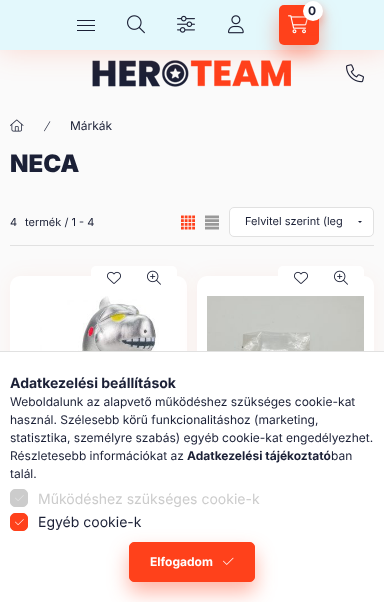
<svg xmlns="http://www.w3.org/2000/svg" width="384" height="602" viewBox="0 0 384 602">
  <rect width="100%" height="100%" fill="#fafafa"/>
  <image x="92" y="60" width="199" height="27" href="img/5.png"/>
  <image x="346" y="64" width="18" height="19" href="img/6.png"/>
  <path d="M0 0h384v50H0z" fill="#ff411b33" filter="blur(15px)"/>
  <path d="M0 0h384v50H0z" fill="#e3f8fc"/>
  <rect x="279" y="15" width="40" height="40" rx="5" fill="#ff411b66" filter="blur(10px)"/>
  <rect x="279" y="5" width="40" height="40" rx="5" fill="#ff411b"/>
  <image x="288" y="15" width="20" height="19" href="img/1.png"/>
  <rect x="303" y="6" width="20" height="20" rx="10" fill="#ff411b66" filter="blur(5px)"/>
  <circle cx="313" cy="11" r="10" fill="#fff"/>
  <path d="M77 20h18v1H77z" fill="#1b2036"/>
  <path d="M77 25h18v1H77z" fill="#1b2036"/>
  <path d="M77 30h18v1H77z" fill="#1b2036"/>
  <image x="127" y="15" width="18" height="19" href="img/2.png"/>
  <image x="177" y="15" width="18" height="18" href="img/3.png"/>
  <image x="228" y="15" width="16" height="19" href="img/4.png"/>
  <image x="10" y="119" width="14" height="13" href="img/7.png"/>
  <image x="44" y="121" width="7" height="11" href="img/8.png"/>
  <path d="M10 245h364v1H10z" fill="#e1e1e1"/>
  <image x="181" y="215" width="14" height="15" href="img/9.png"/>
  <image x="205" y="215" width="14" height="15" href="img/10.png"/>
  <rect x="229.5" y="207.5" width="144" height="29" rx="4.5" fill="#fff" stroke="#e1e1e1"/>
  <path d="M358 221H362L360 223Z" fill="#1b2036"/>
  <rect x="10" y="276" width="177" height="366" rx="10" fill="#ff411b0d" filter="blur(10px)"/>
  <rect x="10" y="276" width="177" height="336" rx="10" fill="#fff"/>
  <rect x="197" y="276" width="177" height="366" rx="10" fill="#ff411b0d" filter="blur(10px)"/>
  <rect x="91" y="266" width="86" height="24" rx="5" fill="#fff"/>
  <image x="107" y="271" width="14" height="13" href="img/11.png"/>
  <image x="147" y="270" width="14" height="15" href="img/12.png"/>
  <image x="40" y="296" width="119" height="55" href="img/13.png"/>
  <rect x="197" y="276" width="177" height="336" rx="10" fill="#fff"/>
  <rect x="278" y="266" width="86" height="24" rx="5" fill="#fff"/>
  <image x="294" y="271" width="14" height="13" href="img/11.png"/>
  <image x="334" y="270" width="14" height="15" href="img/12.png"/>
  <image x="207" y="296" width="157" height="55" href="img/14.png"/>
  <path d="M0 352h384v250H0z" fill="#fff"/>
  <path d="M0 351h384v1H0z" fill="#e1e1e1"/>
  <rect x="10.5" y="489.5" width="17" height="17" rx="4.5" fill="#ccc" stroke="#ccc"/>
  <image x="15" y="495" width="9" height="6" href="img/15.png"/>
  <rect x="10.5" y="513.5" width="17" height="17" rx="4.5" fill="#ff411b" stroke="#ff411b"/>
  <image x="15" y="519" width="9" height="6" href="img/16.png"/>
  <rect x="129" y="552" width="126" height="40" rx="5" fill="#ff411b66" filter="blur(10px)"/>
  <rect x="129.5" y="542.5" width="125" height="39" rx="4.5" fill="#ff411b" stroke="#ff411b"/>
  <image x="223" y="557" width="11" height="8" href="img/17.png"/>
  <text x="308" y="15" font-family="Inter" font-size="12" font-weight="bold" fill="#1b2036">0</text>
  <text x="70" y="130" font-family="Inter" font-size="12" fill="#1b2036">Márkák</text>
  <text x="10" y="172" font-family="Inter" font-size="24" font-weight="900" fill="#1b2036">NECA</text>
  <g font-family="Inter" font-size="11" fill="#1b2036">
    <text x="10" y="226">4</text>
    <text x="25" y="226">termék / 1 - 4</text>
    <text x="245" y="225">Felvitel szerint (leg</text>
  </g>
  <text x="10" y="388" font-family="Inter" font-size="14" font-weight="bold" fill="#1b2036">Adatkezelési beállítások</text>
  <g font-family="Inter" font-size="12" fill="#1b2036">
    <text x="10" y="406">Weboldalunk az alapvető működéshez szükséges cookie-kat</text>
    <text x="10" y="424">használ. Szélesebb körű funkcionalitáshoz (marketing,</text>
    <text x="10" y="442">statisztika, személyre szabás) egyéb cookie-kat engedélyezhet.</text>
    <text x="10" y="460">Részletesebb információkat az</text>
  </g>
  <text x="187" y="460" font-family="Inter" font-size="12" font-weight="bold" fill="#1b2036">Adatkezelési tájékoztató</text>
  <g font-family="Inter" font-size="12" fill="#1b2036">
    <text x="331" y="460">ban</text>
    <text x="10" y="478">talál.</text>
  </g>
  <text x="38" y="504" font-family="Inter" font-size="14" fill="#ccc">Működéshez szükséges cookie-k</text>
  <text x="38" y="527" font-family="Inter" font-size="14" fill="#1b2036">Egyéb cookie-k</text>
  <text x="150" y="566" font-family="Inter" font-size="12" font-weight="bold" fill="#fff">Elfogadom</text>
</svg>
